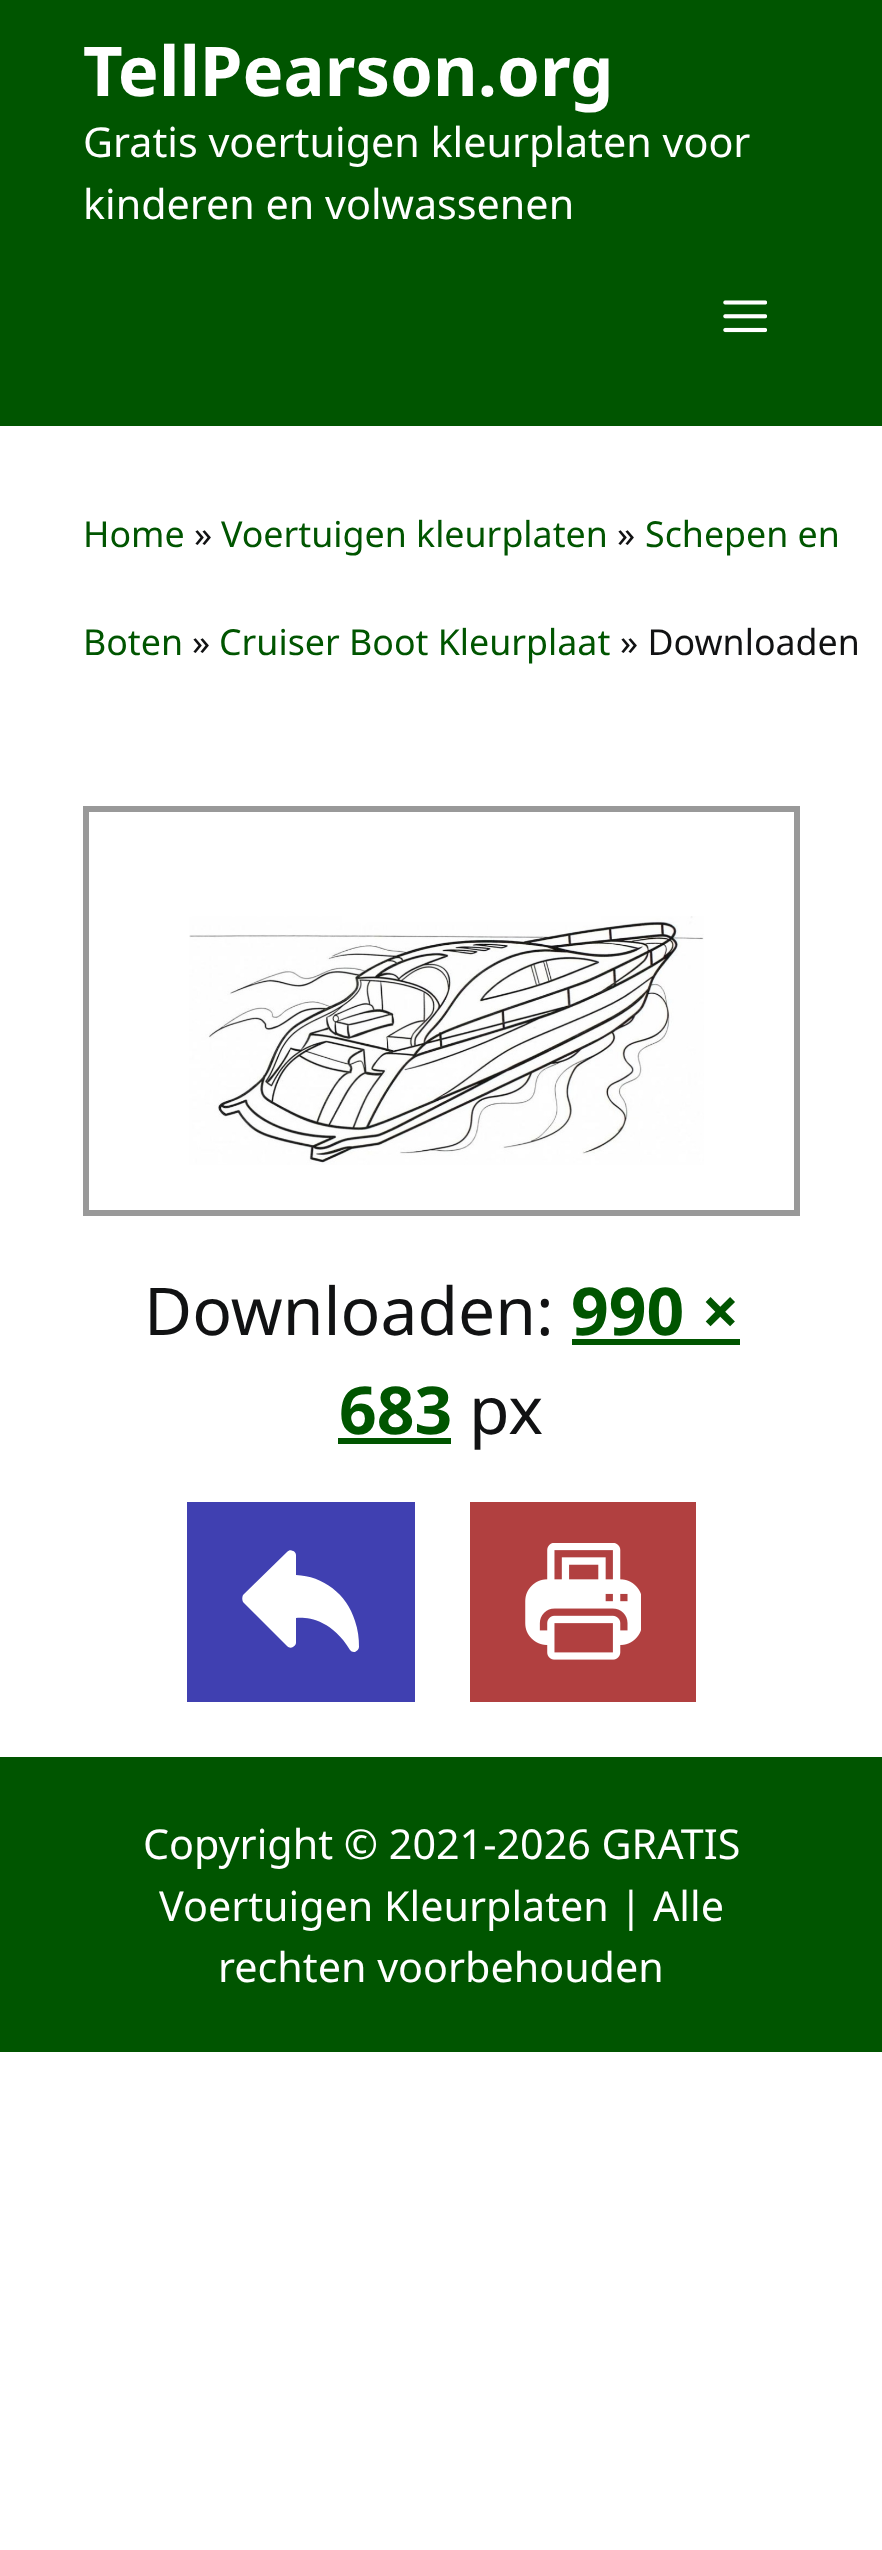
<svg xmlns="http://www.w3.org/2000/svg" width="882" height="2550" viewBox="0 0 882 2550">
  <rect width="100%" height="100%" fill="#fff"/>
  <path d="M0 0h882v426H0z" fill="#050"/>
  <image x="723" y="300" width="44" height="33" href="img/1.png"/>
  <path d="M86 809h711v404H86z" fill="none" stroke="#999" stroke-width="6"/>
  <image x="189" y="916" width="515" height="249" href="img/2.png"/>
  <path d="M572 1339h168v6H572z" fill="#050"/>
  <path d="M338 1438h113v6H338z" fill="#050"/>
  <path d="M187 1502h228v200H187z" fill="#4040b1"/>
  <path d="M355 1621C347 1594 323 1576 296 1575V1555C296 1553 294 1551 293 1551C291 1550 289 1550 287 1552L243 1595C242 1597 242 1600 243 1602L287 1646C289 1648 291 1648 293 1647C294 1646 296 1645 296 1643V1618C305 1617 331 1618 350 1650C351 1651 352 1652 354 1652H355C357 1651 359 1649 359 1647C359 1638 358 1630 355 1621Z" fill="#fff"/>
  <path d="M470 1502h226v200H470z" fill="#b14040"/>
  <image x="525" y="1543" width="116" height="117" href="img/3.png"/>
  <path d="M0 1757h882v295H0z" fill="#050"/>
  <text x="83" y="96" font-family="Noto Sans" font-size="68.75" font-weight="bold" fill="#fff">TellPearson.org</text>
  <g font-family="Noto Sans" font-size="41.25" fill="#fff">
    <text x="83" y="157">Gratis voertuigen kleurplaten voor</text>
    <text x="83" y="219">kinderen en volwassenen</text>
  </g>
  <text x="83" y="547" font-family="Noto Sans" font-size="35.75" fill="#050">Home</text>
  <text x="194" y="547" font-family="Noto Sans" font-size="35.75" fill="#111213">»</text>
  <text x="221" y="547" font-family="Noto Sans" font-size="35.75" fill="#050">Voertuigen kleurplaten</text>
  <text x="617" y="547" font-family="Noto Sans" font-size="35.75" fill="#111213">»</text>
  <g font-family="Noto Sans" font-size="35.75" fill="#050">
    <text x="645" y="547">Schepen en</text>
    <text x="83" y="655">Boten</text>
  </g>
  <text x="192" y="655" font-family="Noto Sans" font-size="35.75" fill="#111213">»</text>
  <text x="219" y="655" font-family="Noto Sans" font-size="35.75" fill="#050">Cruiser Boot Kleurplaat</text>
  <text x="620" y="655" font-family="Noto Sans" font-size="35.75" fill="#111213">» Downloaden</text>
  <text x="144" y="1335" font-family="Noto Sans" font-size="66" fill="#111213">Downloaden:</text>
  <g font-family="Noto Sans" font-size="66" font-weight="bold" fill="#050">
    <text x="571" y="1335">990 ×</text>
    <text x="339" y="1434">683</text>
  </g>
  <text x="469" y="1434" font-family="Noto Sans" font-size="66" fill="#111213">px</text>
  <g font-family="Noto Sans" font-size="41.25" fill="#fff">
    <text x="143" y="1859">Copyright © 2021-2026 GRATIS</text>
    <text x="159" y="1921">Voertuigen Kleurplaten | Alle</text>
    <text x="218" y="1982">rechten voorbehouden</text>
  </g>
</svg>
